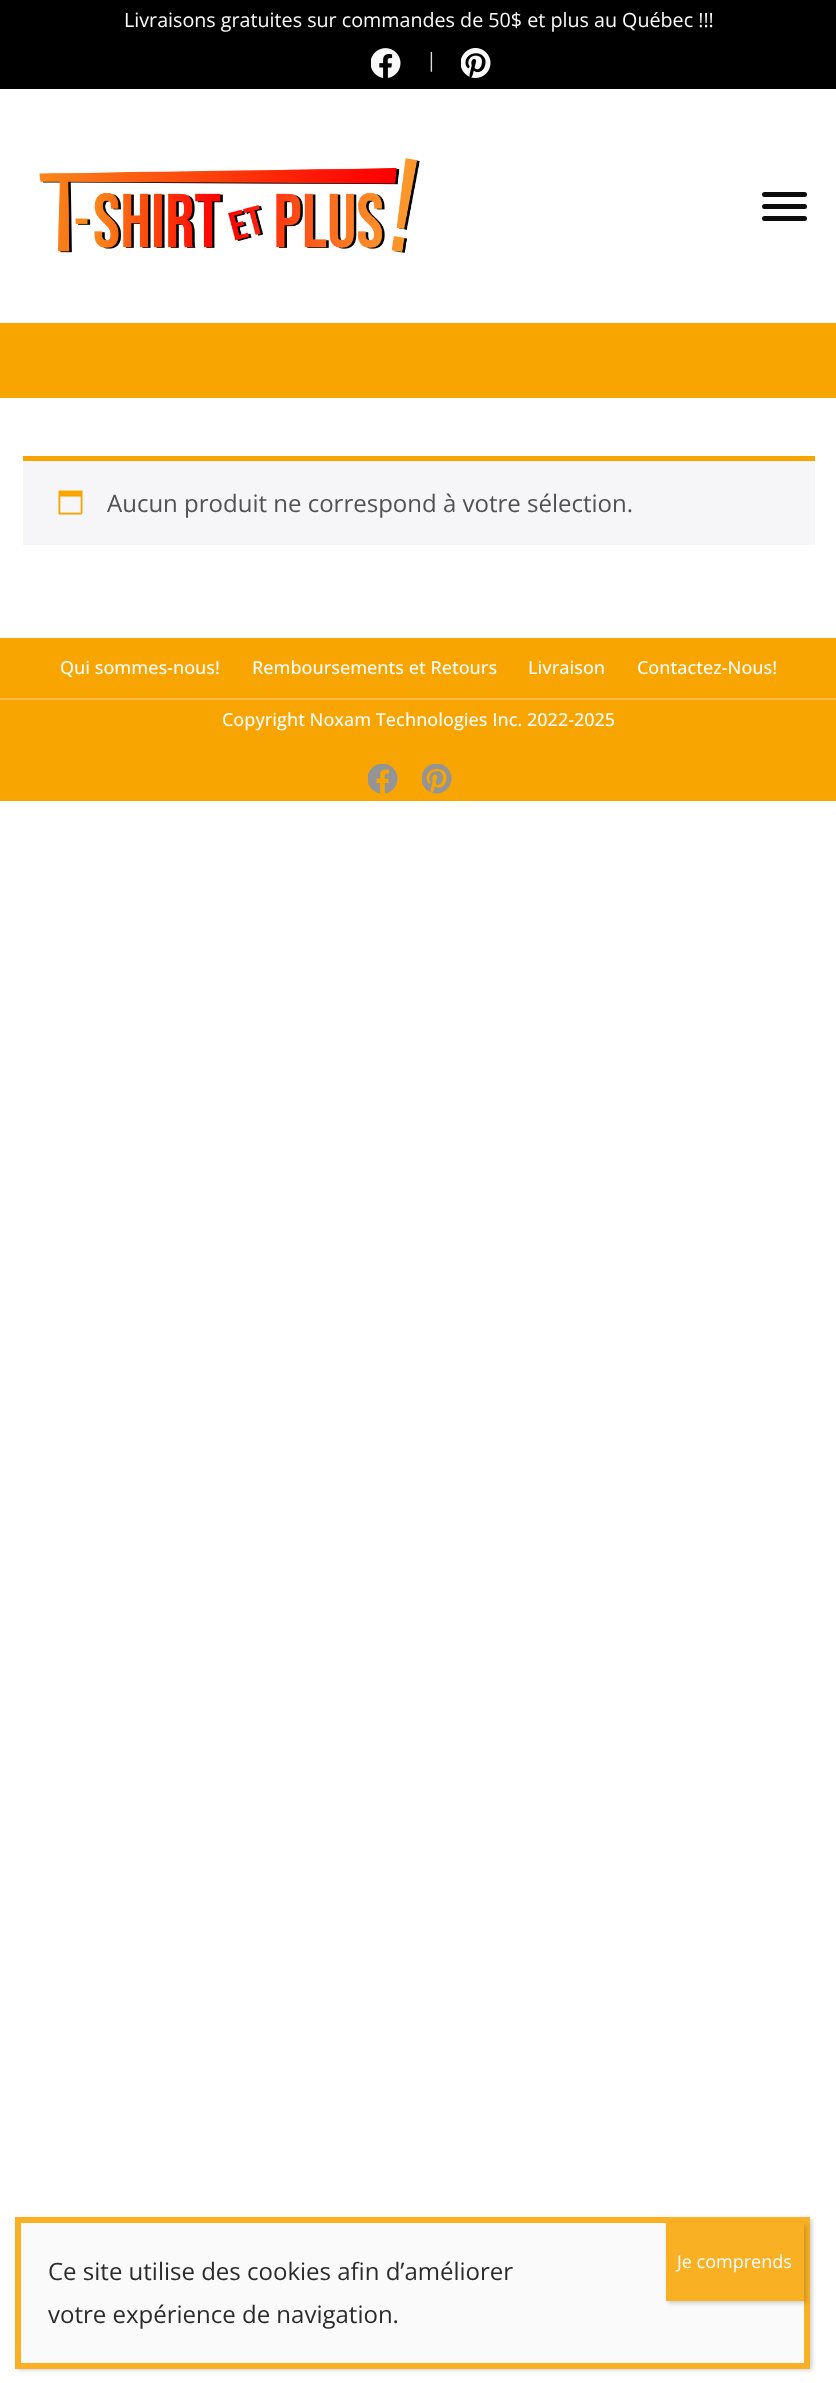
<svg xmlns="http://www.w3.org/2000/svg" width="836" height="2383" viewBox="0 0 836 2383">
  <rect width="100%" height="100%" fill="#fff"/>
  <path d="M0 323h836v75H0z" fill="#f8a401"/>
  <path d="M0 0h836v89H0z" fill="#000"/>
  <image x="371" y="48" width="30" height="30" href="img/1.png"/>
  <image x="461" y="48" width="30" height="30" href="img/2.png"/>
  <image x="39" y="158" width="381" height="95" href="img/3.png"/>
  <rect x="762" y="192" width="45" height="5" rx="2.5" fill="#0c0c0c"/>
  <rect x="762" y="204" width="45" height="5" rx="2.5" fill="#0c0c0c"/>
  <rect x="762" y="216" width="45" height="5" rx="2.5" fill="#0c0c0c"/>
  <path d="M23 461h792v84H23z" fill="#f6f5f8"/>
  <path d="M23 456h792v5H23z" fill="#f8a401"/>
  <image x="58" y="490" width="25" height="25" href="img/4.png"/>
  <path d="M0 638h836v163H0z" fill="#f8a401"/>
  <path d="M0 698h836v2H0z" fill="#f8bc48"/>
  <image x="368" y="764" width="30" height="30" href="img/5.png"/>
  <image x="422" y="764" width="30" height="30" href="img/6.png"/>
  <path d="M17 2219h795v151H17z" fill="#2323233b" filter="blur(2px)"/>
  <path d="M18 2220h789v146H18z" fill="#fafafa" stroke="#f9b023" stroke-width="6"/>
  <path d="M668 2225h138v78H668z" fill="#2323233b" filter="blur(2px)"/>
  <path d="M666 2223h138v78H666z" fill="#f9b023"/>
  <text x="124" y="27" font-family="Open Sans" font-size="19.7" fill="#fcfcfc">Livraisons gratuites sur commandes de 50$ et plus au Québec !!!</text>
  <text x="426" y="67" font-family="Open Sans" font-size="19.7" fill="#ddd">|</text>
  <text x="107" y="512" font-family="Open Sans" font-size="24" fill="#515151">Aucun produit ne correspond à votre sélection.</text>
  <g font-family="Open Sans" font-size="18" font-weight="500" fill="#fcfcfc">
    <text x="60" y="674">Qui sommes-nous!</text>
    <text x="252" y="674">Remboursements et Retours</text>
    <text x="528" y="674">Livraison</text>
    <text x="637" y="674">Contactez-Nous!</text>
    <text x="222" y="726">Copyright Noxam Technologies Inc. 2022-2025</text>
  </g>
  <g font-family="Open Sans" font-size="24" fill="#2b2b2b">
    <text x="48" y="2280">Ce site utilise des cookies afin d’améliorer</text>
    <text x="48" y="2323">votre expérience de navigation.</text>
  </g>
  <text x="677" y="2268" font-family="Open Sans" font-size="18" fill="#fcfcfc">Je comprends</text>
</svg>
